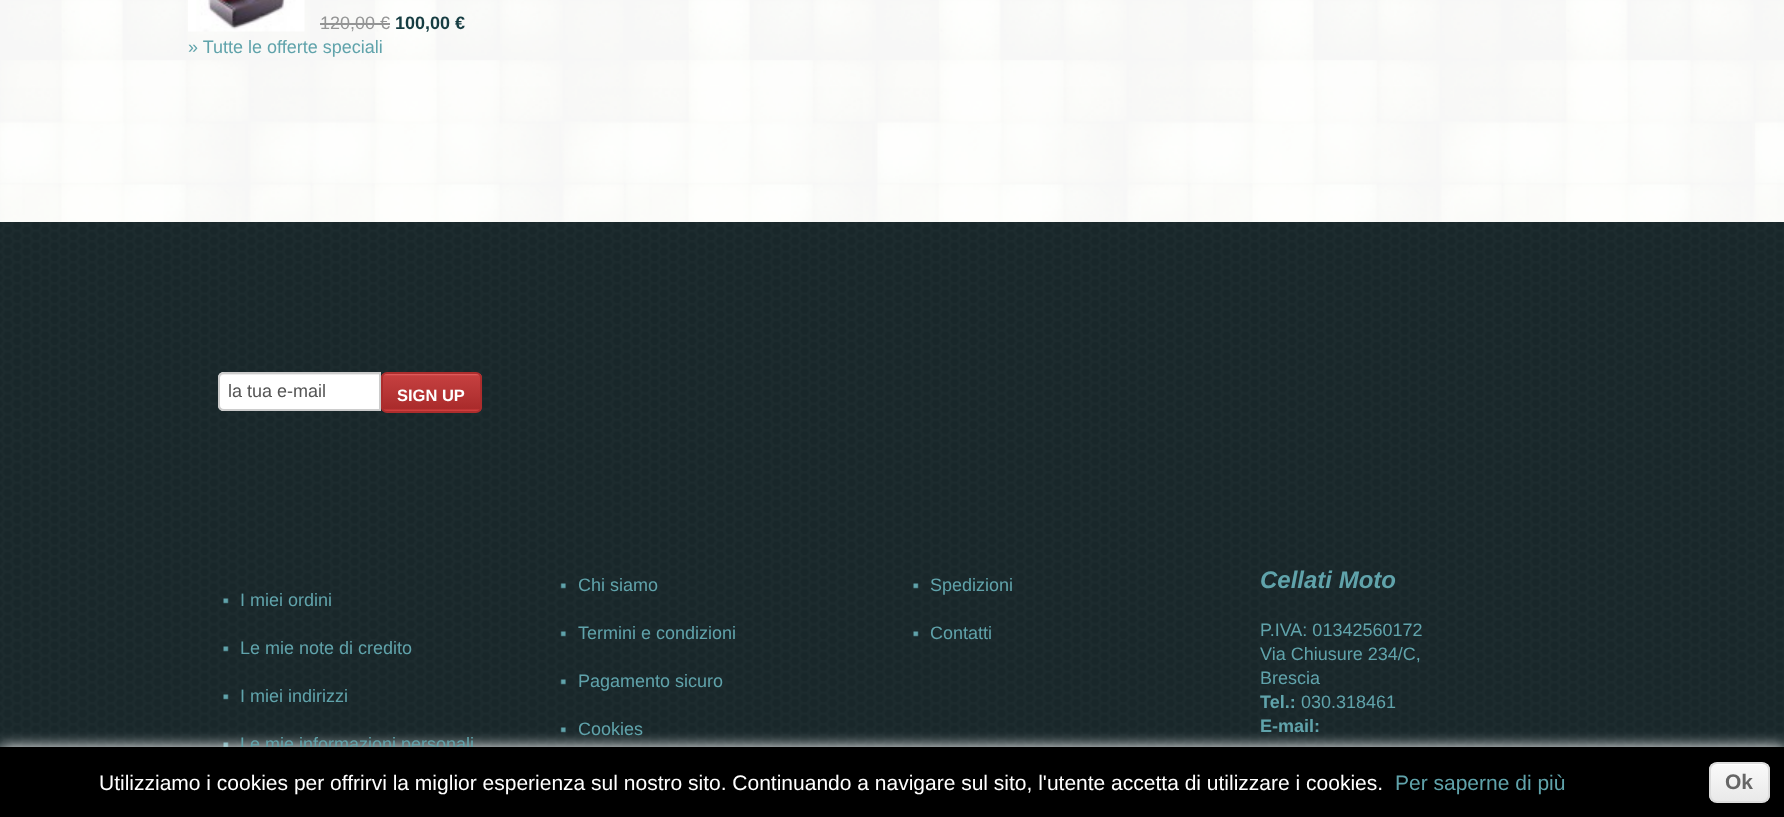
<svg xmlns="http://www.w3.org/2000/svg" width="1784" height="817" viewBox="0 0 1784 817">
  <defs>
    <clipPath id="clip1"><rect x="381" y="372" width="101" height="41" rx="6"/></clipPath>
    <linearGradient id="g1" gradientUnits="userSpaceOnUse" x1="431" y1="374" x2="431" y2="411"><stop offset="0" stop-color="#e56363"/><stop offset="0.05" stop-color="#c53f3f"/><stop offset="0.15" stop-color="#c23d3d"/><stop offset="0.54" stop-color="#b63535"/><stop offset="0.93" stop-color="#aa2b2b"/><stop offset="1" stop-color="#d84242"/></linearGradient>
    <clipPath id="clip2"><rect x="1709" y="762" width="61" height="41" rx="8"/></clipPath>
    <linearGradient id="g2" gradientUnits="userSpaceOnUse" x1="1710" y1="764" x2="1710" y2="801"><stop offset="0.05" stop-color="#f9f9f9"/><stop offset="1" stop-color="#e9e9e9"/></linearGradient>
  </defs>
  <rect width="100%" height="100%" fill="#fff"/>
  <image x="0" y="0" width="1784" height="222" href="img/1.png"/>
  <image x="188" y="0" width="117" height="32" href="img/2.png"/>
  <path d="M320 23h70v2H320z" fill="#949595"/>
  <image x="0" y="222" width="1784" height="525" href="img/3.png"/>
  <path d="M224 372H381V411H224C220.5 411 218 408.5 218 405V378C218 374.5 220.5 372 224 372Z" fill="#fff"/>
  <path d="M224 375H380V374H224C221 374 219 376 219 379V380C219 377 221 375 224 375Z" fill="#ececec"/>
  <path d="M224 373H380V410H224C221 410 219 408 219 405V378C219 375 221 373 224 373Z" fill="none" stroke="#ccc" stroke-width="2"/>
  <g clip-path="url(#clip1)">
    <path d="M381 374h101v37H381z" fill="url(#g1)"/>
  </g>
  <rect x="382" y="373" width="99" height="39" rx="5" fill="none" stroke="#ac2d2d" stroke-width="2"/>
  <image x="223" y="598" width="6" height="6" href="img/4.png"/>
  <image x="223" y="646" width="6" height="6" href="img/5.png"/>
  <image x="223" y="694" width="6" height="6" href="img/6.png"/>
  <image x="223" y="742" width="6" height="5" href="img/7.png"/>
  <image x="560" y="583" width="6" height="6" href="img/8.png"/>
  <image x="560" y="631" width="6" height="6" href="img/9.png"/>
  <image x="560" y="679" width="6" height="6" href="img/10.png"/>
  <image x="560" y="727" width="6" height="6" href="img/11.png"/>
  <image x="913" y="583" width="6" height="6" href="img/12.png"/>
  <image x="913" y="631" width="6" height="6" href="img/13.png"/>
  <path d="M0 747h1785v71H0z" fill="#fff" filter="blur(7.5px)"/>
  <text x="320" y="29" font-family="Liberation Sans" font-size="18" fill="#949595">120,00 €</text>
  <text x="395" y="29" font-family="Liberation Sans" font-size="18" font-weight="bold" fill="#163d42">100,00 €</text>
  <text x="188" y="53" font-family="Liberation Sans" font-size="18" fill="#60a3ab">» Tutte le offerte speciali</text>
  <text x="228" y="397" font-family="Liberation Sans" font-size="18" fill="#555">la tua e-mail</text>
  <text x="397" y="401" font-family="Liberation Sans" font-size="16.5" font-weight="bold" fill="#fff">SIGN UP</text>
  <g font-family="Liberation Sans" font-size="18" fill="#60a3ab">
    <text x="240" y="606">I miei ordini</text>
    <text x="240" y="654">Le mie note di credito</text>
    <text x="240" y="702">I miei indirizzi</text>
    <text x="240" y="750">Le mie informazioni personali</text>
    <text x="578" y="591">Chi siamo</text>
    <text x="578" y="639">Termini e condizioni</text>
    <text x="578" y="687">Pagamento sicuro</text>
    <text x="578" y="735">Cookies</text>
    <text x="930" y="591">Spedizioni</text>
    <text x="930" y="639">Contatti</text>
  </g>
  <text x="1260" y="588" font-family="Liberation Sans" font-size="24" font-weight="bold" font-style="italic" fill="#60a3ab">Cellati Moto</text>
  <g font-family="Liberation Sans" font-size="18" fill="#60a3ab">
    <text x="1260" y="636">P.IVA: 01342560172</text>
    <text x="1260" y="660">Via Chiusure 234/C,</text>
    <text x="1260" y="684">Brescia</text>
  </g>
  <text x="1260" y="708" font-family="Liberation Sans" font-size="18" font-weight="bold" fill="#60a3ab">Tel.:</text>
  <text x="1301" y="708" font-family="Liberation Sans" font-size="18" fill="#60a3ab">030.318461</text>
  <text x="1260" y="732" font-family="Liberation Sans" font-size="18" font-weight="bold" fill="#60a3ab">E-mail:</text>
  <path d="M0 747h1784v70H0z" fill="#000"/>
  <text x="99" y="790" font-family="Liberation Sans" font-size="21" fill="#fff">Utilizziamo i cookies per offrirvi la miglior esperienza sul nostro sito. Continuando a navigare sul sito, l'utente accetta di utilizzare i cookies.</text>
  <text x="1395" y="790" font-family="Liberation Sans" font-size="21" fill="#60a3ab">Per saperne di più</text>
  <g clip-path="url(#clip2)">
    <path d="M1709 764h61v37H1709z" fill="url(#g2)"/>
  </g>
  <path d="M1716 765H1762C1766 765 1768 768 1768 771V796L1767 799C1770 796 1769 786 1769 782C1769 761 1770 764 1747 764H1724C1717 764 1710 762 1710 771C1710 768 1713 765 1716 765Z" fill="#fff"/>
  <rect x="1710" y="763" width="59" height="39" rx="7" fill="none" stroke="#dcdcdc" stroke-width="2"/>
  <text x="1725" y="789" font-family="Liberation Sans" font-size="21" font-weight="bold" fill="#666">Ok</text>
</svg>
